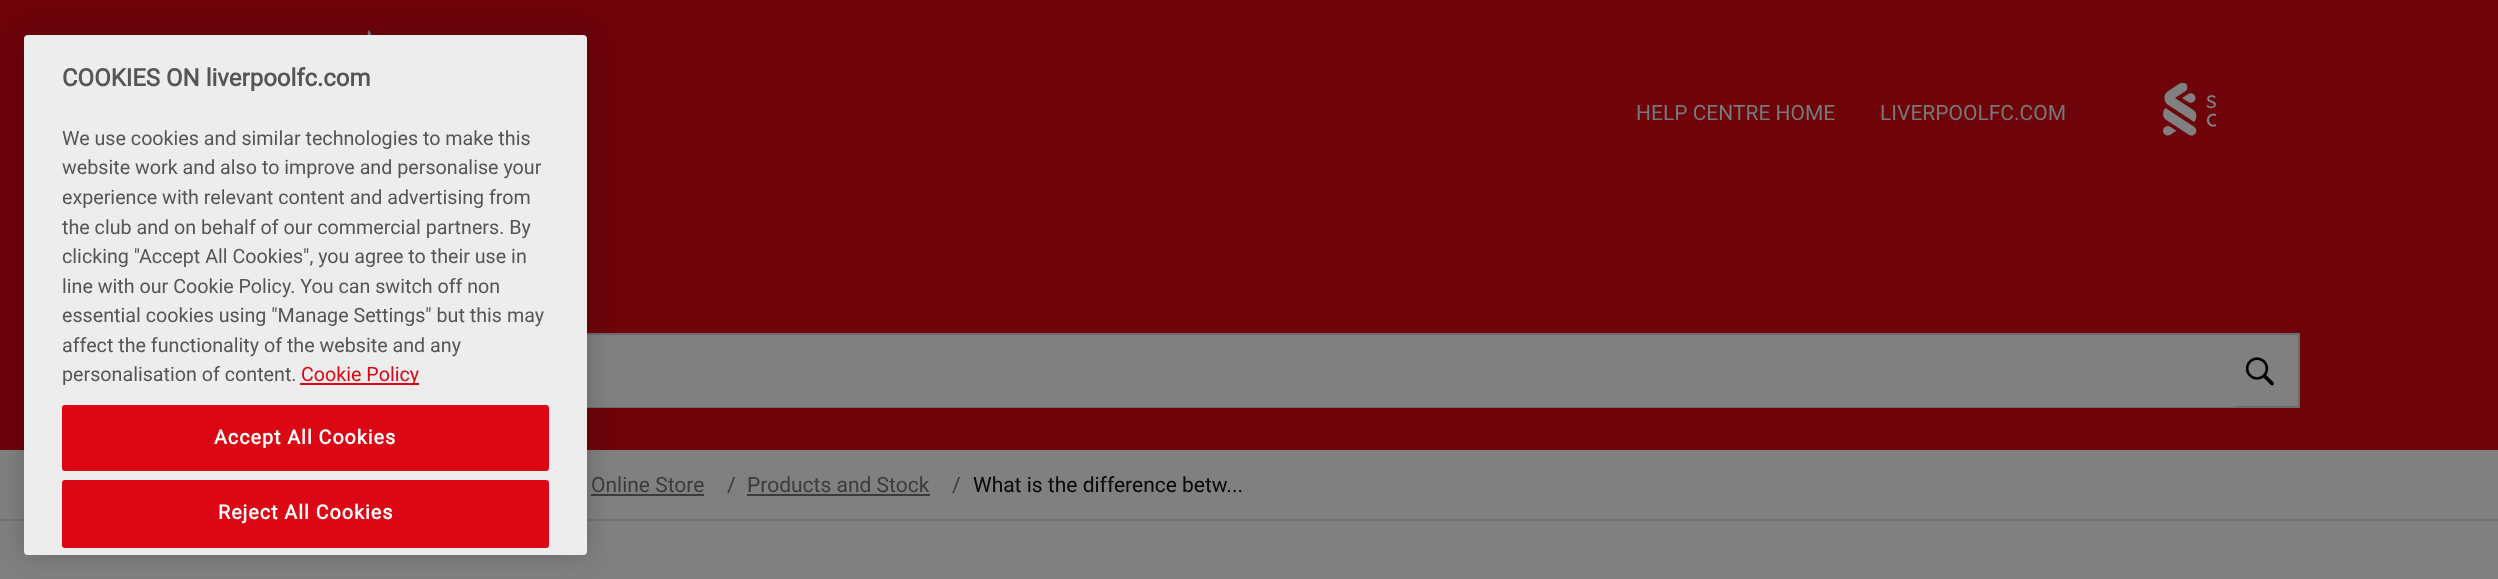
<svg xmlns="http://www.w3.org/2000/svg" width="2498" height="579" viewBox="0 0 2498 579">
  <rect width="100%" height="100%" fill="#808080"/>
  <path d="M0 0h2498v450H0z" fill="#6e040a"/>
  <image x="367" y="30" width="5" height="5" href="img/1.png"/>
  <path d="M2232 335h66v71H2232z" fill="#808080"/>
  <path d="M201 334h2098v73H201z" fill="none" stroke="#6c6c70" stroke-width="2"/>
  <rect x="219" y="335" width="2019" height="72" rx="6" fill="#808080"/>
  <path d="M0 519h2498v2H0z" fill="#747474"/>
  <path d="M591 494h113v2H591z" fill="#3a3a3f"/>
  <rect x="24" y="35" width="563" height="520" rx="4" fill="#00000033" filter="blur(13.5px)"/>
  <rect x="24" y="35" width="563" height="520" rx="4" fill="#ededed"/>
  <path d="M300 383h119v2H300z" fill="#dc0714"/>
  <rect x="63" y="406" width="485" height="64" rx="2" fill="#dc0714" stroke="#dc0714" stroke-width="2"/>
  <rect x="63" y="481" width="485" height="66" rx="2" fill="#dc0714" stroke="#dc0714" stroke-width="2"/>
  <image x="2163" y="83" width="53" height="53" href="img/2.png"/>
  <image x="2245" y="357" width="29" height="29" href="img/3.png"/>
  <path d="M747 494h183v2H747z" fill="#3a3a3f"/>
  <text x="62" y="86" font-family="Roboto" font-size="24" font-weight="bold" fill="#555">COOKIES ON liverpoolfc.com</text>
  <g font-family="Roboto" font-size="19.7" fill="#555">
    <text x="62" y="145">We use cookies and similar technologies to make this</text>
    <text x="62" y="174">website work and also to improve and personalise your</text>
    <text x="62" y="204">experience with relevant content and advertising from</text>
    <text x="62" y="234">the club and on behalf of our commercial partners. By</text>
    <text x="62" y="263">clicking "Accept All Cookies", you agree to their use in</text>
    <text x="62" y="293">line with our Cookie Policy. You can switch off non</text>
    <text x="62" y="322">essential cookies using "Manage Settings" but this may</text>
    <text x="62" y="352">affect the functionality of the website and any</text>
    <text x="62" y="381">personalisation of content.</text>
  </g>
  <text x="301" y="381" font-family="Roboto" font-size="19.7" fill="#dc0714">Cookie Policy</text>
  <g font-family="Roboto" font-size="19.7" font-weight="bold" letter-spacing="1" fill="#fff">
    <text x="214" y="444">Accept All Cookies</text>
    <text x="218" y="519">Reject All Cookies</text>
  </g>
  <g font-family="Roboto" font-size="21" fill="#78787a">
    <text x="1636" y="120">HELP CENTRE HOME</text>
    <text x="1880" y="120">LIVERPOOLFC.COM</text>
  </g>
  <g font-family="Roboto" font-size="21" fill="#3a3a3f">
    <text x="591" y="492">Online Store</text>
    <text x="727" y="492">/</text>
    <text x="747" y="492">Products and Stock</text>
    <text x="952" y="492">/</text>
  </g>
  <text x="973" y="492" font-family="Roboto" font-size="21" fill="#060606">What is the difference betw...</text>
</svg>
